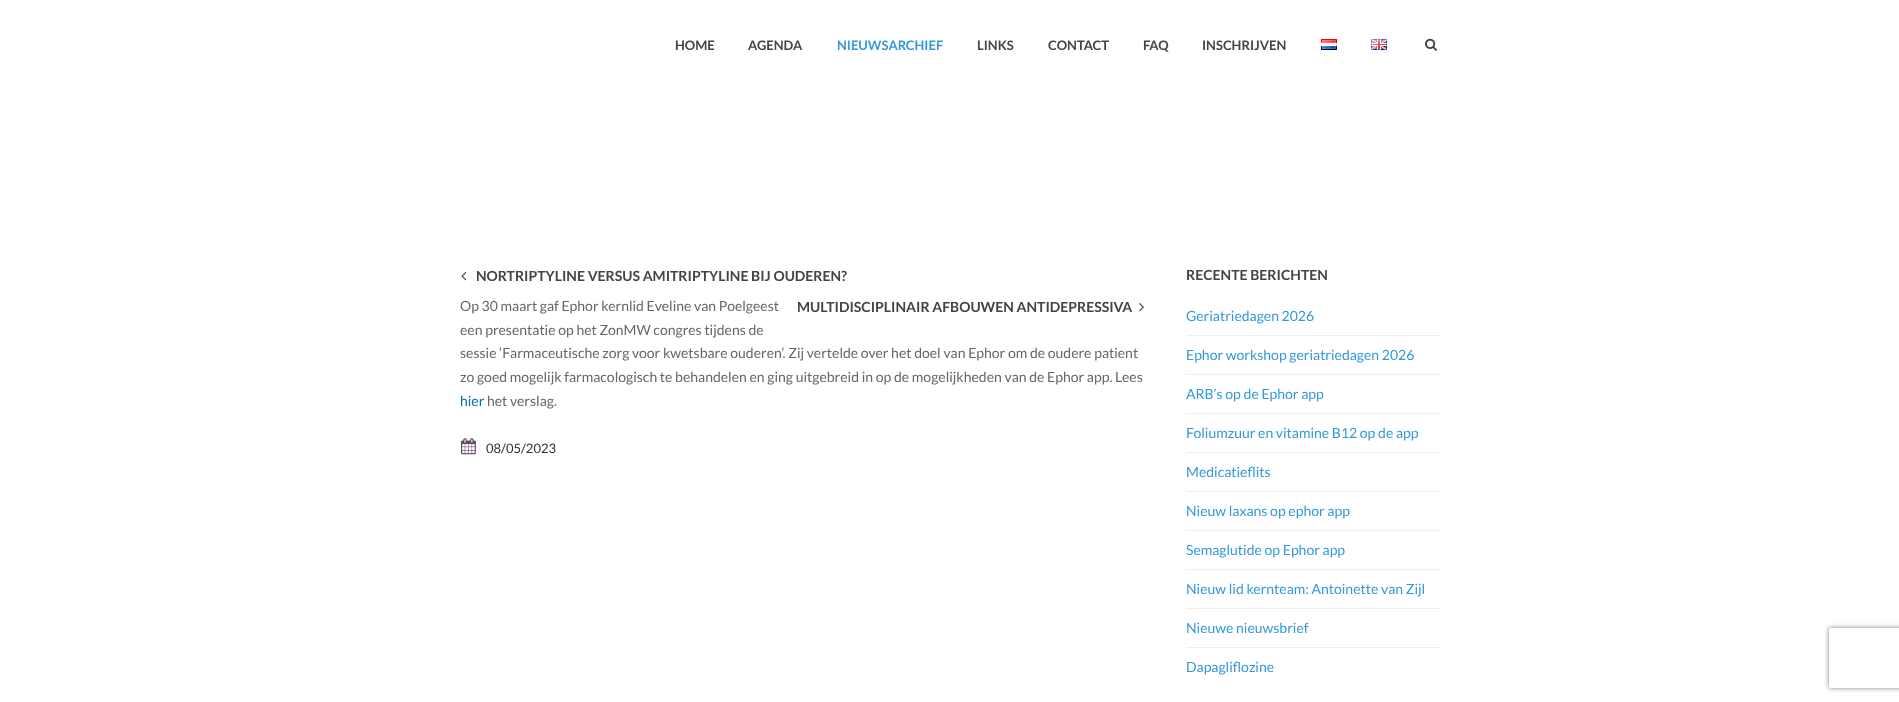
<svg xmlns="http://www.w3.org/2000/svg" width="1899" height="702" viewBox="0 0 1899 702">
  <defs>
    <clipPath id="clip1"><path d="M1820 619H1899V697H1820ZM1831 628H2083C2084 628 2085 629 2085 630V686C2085 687 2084 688 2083 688H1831C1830 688 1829 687 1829 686V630C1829 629 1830 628 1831 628Z" clip-rule="evenodd"/></clipPath>
  </defs>
  <rect width="100%" height="100%" fill="#fff"/>
  <image x="1321" y="39" width="16" height="11" href="img/1.png"/>
  <image x="1371" y="39" width="16" height="11" href="img/2.png"/>
  <image x="1425" y="38" width="12" height="13" href="img/3.png"/>
  <image x="461" y="272" width="6" height="9" href="img/4.png"/>
  <image x="1139" y="303" width="5" height="9" href="img/5.png"/>
  <image x="461" y="438" width="15" height="17" href="img/6.png"/>
  <path d="M1186 335h254v1H1186z" fill="#eee"/>
  <path d="M1186 374h254v1H1186z" fill="#eee"/>
  <path d="M1186 413h254v1H1186z" fill="#eee"/>
  <path d="M1186 452h254v1H1186z" fill="#eee"/>
  <path d="M1186 491h254v1H1186z" fill="#eee"/>
  <path d="M1186 530h254v1H1186z" fill="#eee"/>
  <path d="M1186 569h254v1H1186z" fill="#eee"/>
  <path d="M1186 608h254v1H1186z" fill="#eee"/>
  <path d="M1186 647h254v1H1186z" fill="#eee"/>
  <g clip-path="url(#clip1)">
    <rect x="1829" y="628" width="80" height="60" rx="2" fill="#808080" filter="blur(2.5px)"/>
  </g>
  <g font-family="Lato" font-size="13" font-weight="bold" fill="#444">
    <text x="675" y="50">HOME</text>
    <text x="748" y="50">AGENDA</text>
  </g>
  <text x="837" y="50" font-family="Lato" font-size="13" font-weight="bold" fill="#3498db">NIEUWSARCHIEF</text>
  <g font-family="Lato" font-size="13" font-weight="bold" fill="#444">
    <text x="977" y="50">LINKS</text>
    <text x="1048" y="50">CONTACT</text>
    <text x="1143" y="50">FAQ</text>
    <text x="1202" y="50">INSCHRIJVEN</text>
  </g>
  <text x="476" y="281" font-family="Lato" font-size="14" font-weight="bold" fill="#444">NORTRIPTYLINE VERSUS AMITRIPTYLINE BIJ OUDEREN?</text>
  <g font-family="Lato" font-size="14" fill="#666">
    <text x="460" y="311">Op 30 maart gaf Ephor kernlid Eveline van Poelgeest</text>
    <text x="460" y="335">een presentatie op het ZonMW congres tijdens de</text>
    <text x="460" y="358">sessie ‘Farmaceutische zorg voor kwetsbare ouderen’. Zij vertelde over het doel van Ephor om de oudere patient</text>
    <text x="460" y="382">zo goed mogelijk farmacologisch te behandelen en ging uitgebreid in op de mogelijkheden van de Ephor app. Lees</text>
  </g>
  <text x="460" y="406" font-family="Lato" font-size="14" fill="#006fa9">hier</text>
  <text x="487" y="406" font-family="Lato" font-size="14" fill="#666">het verslag.</text>
  <text x="797" y="312" font-family="Lato" font-size="14" font-weight="bold" fill="#444">MULTIDISCIPLINAIR AFBOUWEN ANTIDEPRESSIVA</text>
  <text x="486" y="453" font-family="Lato" font-size="13" fill="#3e293e">08/05/2023</text>
  <text x="1186" y="280" font-family="Lato" font-size="14" font-weight="bold" fill="#444">RECENTE BERICHTEN</text>
  <g font-family="Lato" font-size="14" fill="#3498db">
    <text x="1186" y="321">Geriatriedagen 2026</text>
    <text x="1186" y="360">Ephor workshop geriatriedagen 2026</text>
    <text x="1186" y="399">ARB’s op de Ephor app</text>
    <text x="1186" y="438">Foliumzuur en vitamine B12 op de app</text>
    <text x="1186" y="477">Medicatieflits</text>
    <text x="1186" y="516">Nieuw laxans op ephor app</text>
    <text x="1186" y="555">Semaglutide op Ephor app</text>
    <text x="1186" y="594">Nieuw lid kernteam: Antoinette van Zijl</text>
    <text x="1186" y="633">Nieuwe nieuwsbrief</text>
    <text x="1186" y="672">Dapagliflozine</text>
  </g>
</svg>
